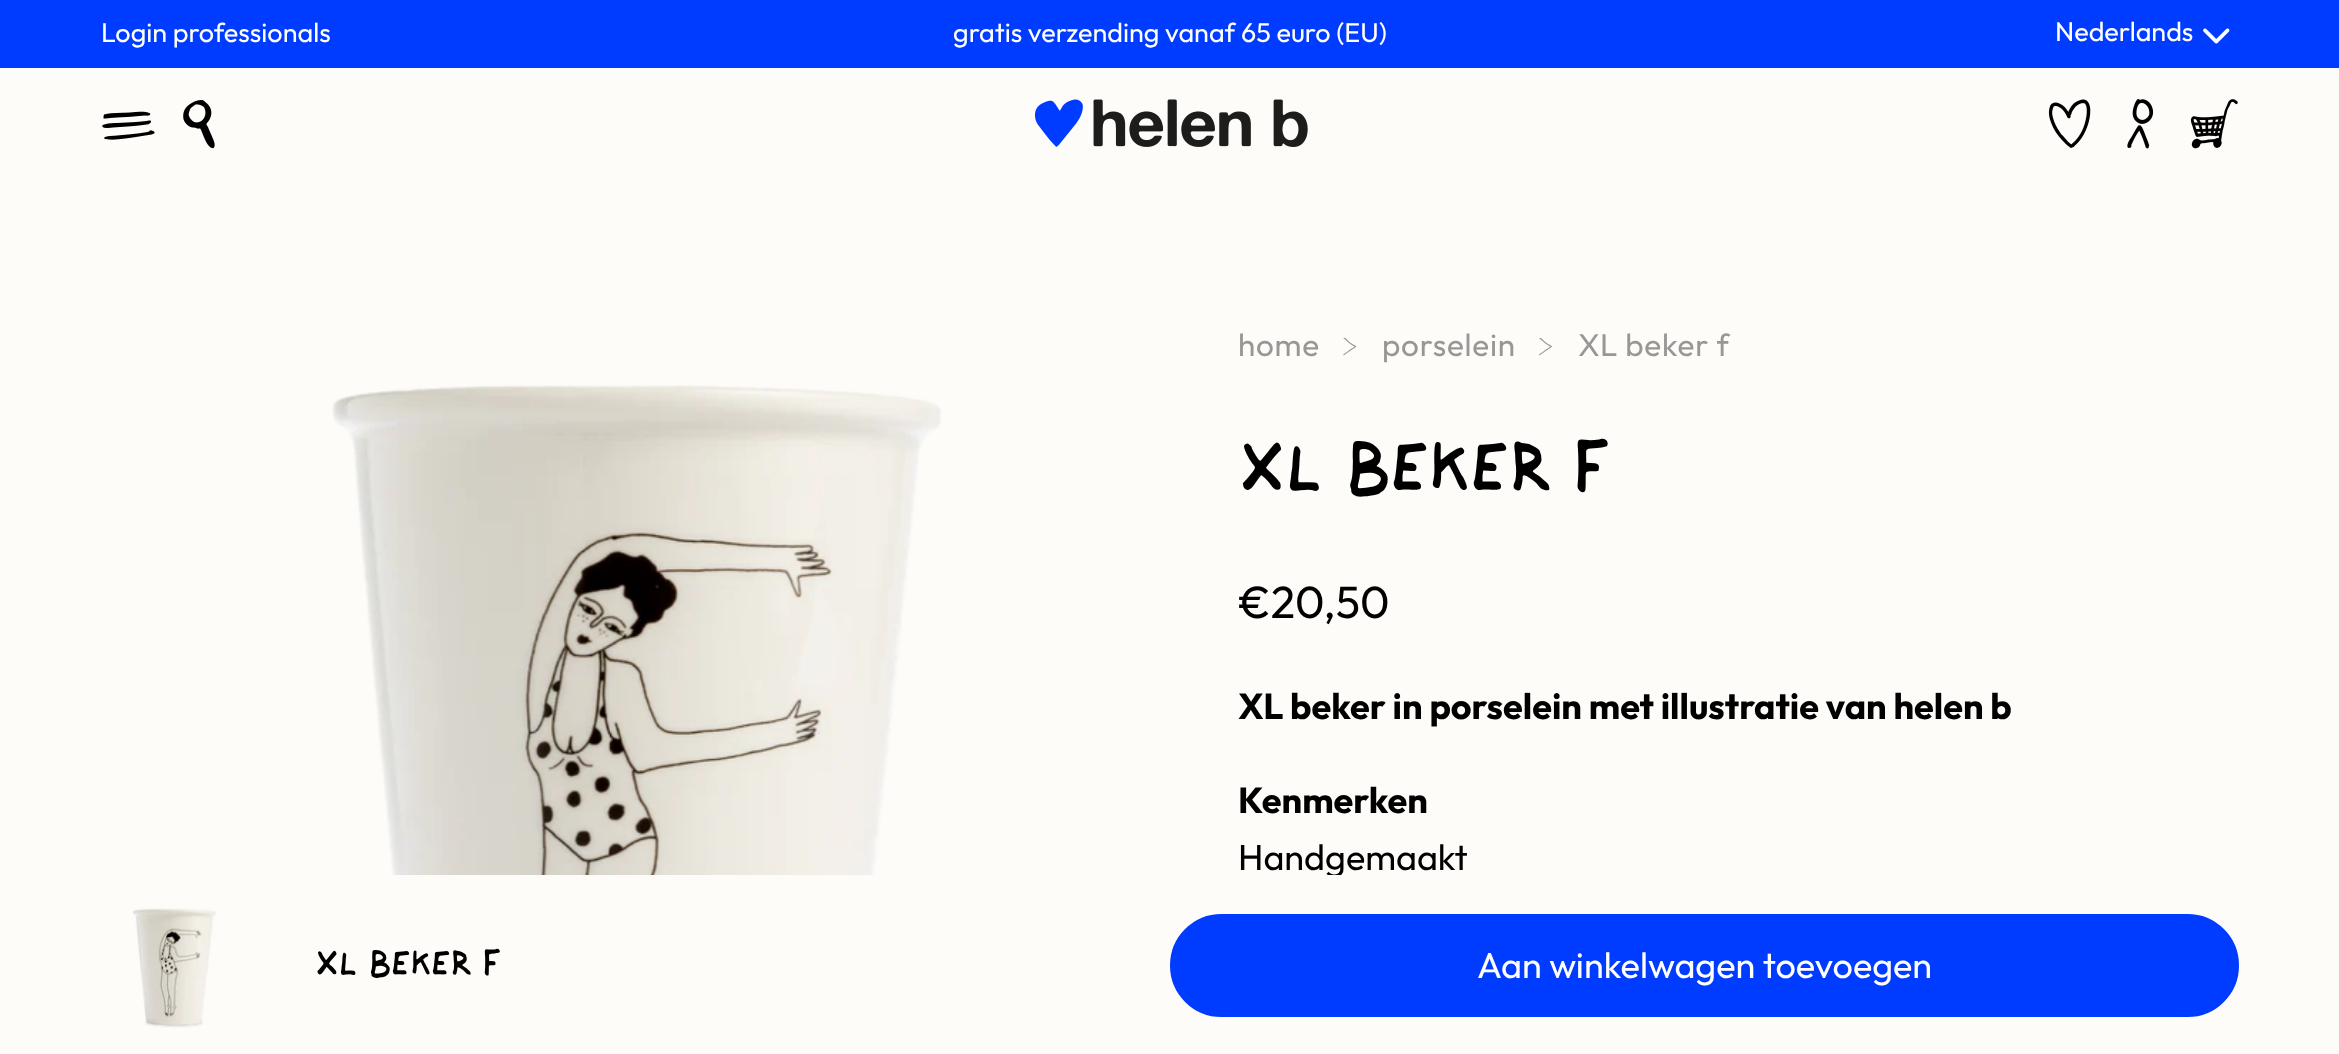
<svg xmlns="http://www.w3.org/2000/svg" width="2339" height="1054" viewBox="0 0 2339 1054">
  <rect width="100%" height="100%" fill="#fefcf9"/>
  <path d="M0 0h2339v68H0z" fill="#003cff"/>
  <image x="2203" y="28" width="27" height="16" href="img/1.png"/>
  <image x="102" y="111" width="53" height="29" href="img/2.png"/>
  <image x="183" y="100" width="32" height="49" href="img/3.png"/>
  <image x="1035" y="99" width="273" height="48" href="img/4.png"/>
  <image x="2048" y="99" width="43" height="49" href="img/5.png"/>
  <image x="2127" y="99" width="27" height="50" href="img/6.png"/>
  <image x="2190" y="99" width="48" height="50" href="img/7.png"/>
  <image x="332" y="385" width="610" height="490" href="img/8.png"/>
  <image x="1343" y="338" width="14" height="18" href="img/9.png"/>
  <image x="1539" y="338" width="13" height="18" href="img/10.png"/>
  <image x="132" y="908" width="84" height="120" href="img/11.png"/>
  <rect x="1171" y="915" width="1067" height="101" rx="50.5" fill="#003cff" stroke="#003cff" stroke-width="2"/>
  <g font-family="Outfit" font-size="27" fill="#fff">
    <text x="101" y="42">Login professionals</text>
    <text x="953" y="42">gratis verzending vanaf 65 euro (EU)</text>
    <text x="2055" y="41">Nederlands</text>
  </g>
  <g font-family="Outfit" font-size="31.5" letter-spacing="0.75" fill="#989795">
    <text x="1238" y="356">home</text>
    <text x="1382" y="356">porselein</text>
    <text x="1578" y="356">XL beker f</text>
  </g>
  <text x="1238" y="499" font-family="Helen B" font-size="90" fill="#000">XL BEKER F</text>
  <text x="1238" y="618" font-family="Outfit" font-size="45" fill="#000">€20,50</text>
  <g font-family="Outfit" font-size="36" font-weight="bold" fill="#000">
    <text x="1238" y="719">XL beker in porselein met illustratie van helen b</text>
    <text x="1238" y="813">Kenmerken</text>
  </g>
  <text x="1238" y="870" font-family="Outfit" font-size="36" fill="#000">Handgemaakt</text>
  <path d="M1327 875h14v3H1327z" fill="#fefcf9"/>
  <text x="315" y="979" font-family="Helen B" font-size="45" fill="#000">XL BEKER F</text>
  <text x="1477" y="978" font-family="Outfit" font-size="36" fill="#fff">Aan winkelwagen toevoegen</text>
</svg>
